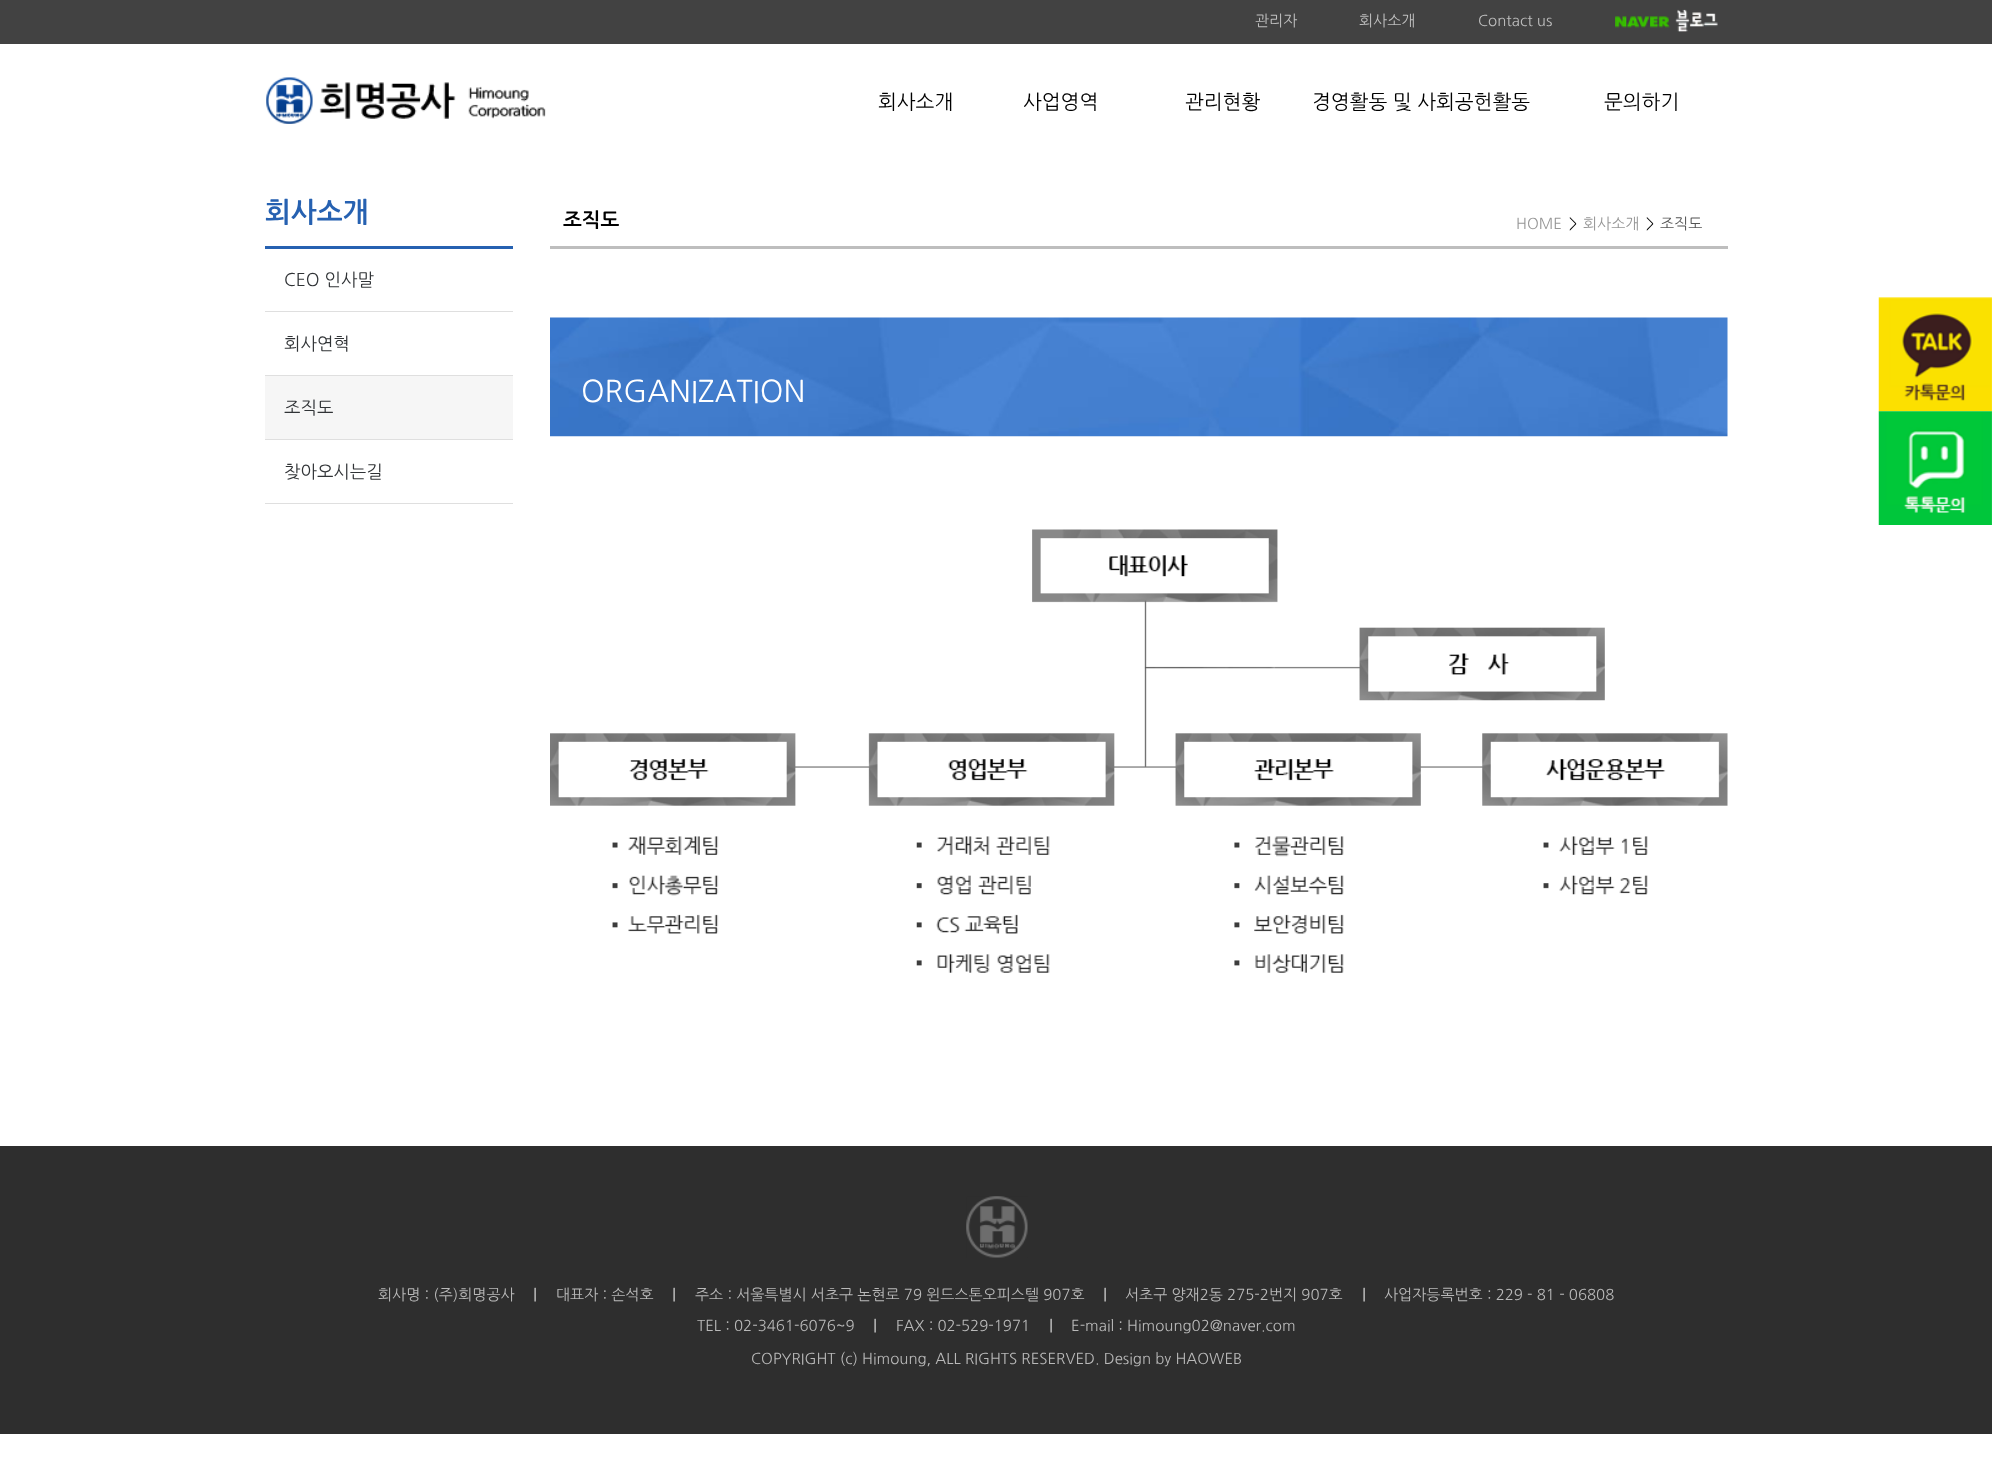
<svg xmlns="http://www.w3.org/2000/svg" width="1992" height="1484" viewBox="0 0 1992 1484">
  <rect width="100%" height="100%" fill="#fff"/>
  <path d="M0 0h1992v44H0z" fill="#424242"/>
  <image x="1615" y="16" width="55" height="12" href="img/1.png"/>
  <image x="1675" y="9" width="43" height="23" href="img/2.png"/>
  <image x="266" y="77" width="280" height="47" href="img/3.png"/>
  <path d="M265 246h248v3H265z" fill="#2661b1"/>
  <path d="M265 311h248v1H265z" fill="#dfdfdf"/>
  <path d="M265 375h248v1H265z" fill="#dfdfdf"/>
  <path d="M265 376h248v63H265z" fill="#f6f6f6"/>
  <path d="M265 439h248v1H265z" fill="#dfdfdf"/>
  <path d="M265 503h248v1H265z" fill="#dfdfdf"/>
  <path d="M550 246h1178v3H550z" fill="#bebebe"/>
  <image x="550" y="317" width="1178" height="120" href="img/4.png"/>
  <image x="550" y="529" width="1178" height="444" href="img/5.png"/>
  <image x="1878" y="297" width="114" height="115" href="img/6.png"/>
  <image x="1878" y="411" width="114" height="114" href="img/7.png"/>
  <path d="M0 1146h1992v288H0z" fill="#2e2e2e"/>
  <image x="966" y="1196" width="62" height="62" href="img/8.png"/>
  <g font-family="NanumGothic" font-size="15" fill="#bfbfbf">
    <text x="1255" y="26">관리자</text>
    <text x="1359" y="26">회사소개</text>
    <text x="1478" y="26">Contact us</text>
  </g>
  <g font-family="NanumGothic" font-size="20" fill="#000">
    <text x="878" y="109">회사소개</text>
    <text x="1023" y="109">사업영역</text>
    <text x="1185" y="109">관리현황</text>
    <text x="1312" y="109">경영활동 및 사회공헌활동</text>
    <text x="1604" y="109">문의하기</text>
  </g>
  <text x="265" y="222" font-family="NanumGothic" font-size="27.5" font-weight="bold" fill="#2661b1">회사소개</text>
  <g font-family="NanumGothic" font-size="17.5" fill="#303336">
    <text x="284" y="286">CEO 인사말</text>
    <text x="284" y="350">회사연혁</text>
    <text x="284" y="414">조직도</text>
    <text x="284" y="478">찾아오시는길</text>
  </g>
  <text x="563" y="227" font-family="NanumGothic" font-size="20" font-weight="bold" fill="#000">조직도</text>
  <text x="1516" y="229" font-family="NanumGothic" font-size="15" fill="#969696">HOME</text>
  <text x="1569" y="229" font-family="NanumGothic" font-size="15" fill="#000">&gt;</text>
  <text x="1583" y="229" font-family="NanumGothic" font-size="15" fill="#969696">회사소개</text>
  <text x="1646" y="229" font-family="NanumGothic" font-size="15" fill="#000">&gt;</text>
  <text x="1660" y="229" font-family="NanumGothic" font-size="15" fill="#545454">조직도</text>
  <text x="581" y="402" font-family="NanumGothic" font-size="30" fill="#fff">ORGANIZATION</text>
  <text x="378" y="1300" font-family="NanumGothic" font-size="15" fill="#b9b9b9">회사명 : (주)희명공사</text>
  <text x="533" y="1300" font-family="'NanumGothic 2'" font-size="15" font-weight="bold" fill="#b9b9b9">|</text>
  <text x="556" y="1300" font-family="NanumGothic" font-size="15" fill="#b9b9b9">대표자 : 손석호</text>
  <text x="672" y="1300" font-family="'NanumGothic 2'" font-size="15" font-weight="bold" fill="#b9b9b9">|</text>
  <text x="695" y="1300" font-family="NanumGothic" font-size="15" fill="#b9b9b9">주소 : 서울특별시 서초구 논현로 79 윈드스톤오피스텔 907호</text>
  <text x="1103" y="1300" font-family="'NanumGothic 2'" font-size="15" font-weight="bold" fill="#b9b9b9">|</text>
  <text x="1125" y="1300" font-family="NanumGothic" font-size="15" fill="#b9b9b9">서초구 양재2동 275-2번지 907호</text>
  <text x="1362" y="1300" font-family="'NanumGothic 2'" font-size="15" font-weight="bold" fill="#b9b9b9">|</text>
  <g font-family="NanumGothic" font-size="15" fill="#b9b9b9">
    <text x="1384" y="1300">사업자등록번호 : 229 - 81 - 06808</text>
    <text x="697" y="1331">TEL : 02-3461-6076~9</text>
  </g>
  <text x="873" y="1331" font-family="'NanumGothic 2'" font-size="15" font-weight="bold" fill="#b9b9b9">|</text>
  <text x="896" y="1331" font-family="NanumGothic" font-size="15" fill="#b9b9b9">FAX : 02-529-1971</text>
  <text x="1049" y="1331" font-family="'NanumGothic 2'" font-size="15" font-weight="bold" fill="#b9b9b9">|</text>
  <g font-family="NanumGothic" font-size="15" fill="#b9b9b9">
    <text x="1071" y="1331">E-mail : Himoung02@naver.com</text>
    <text x="751" y="1364">COPYRIGHT (c) Himoung, ALL RIGHTS RESERVED. Design by HAOWEB</text>
  </g>
</svg>
